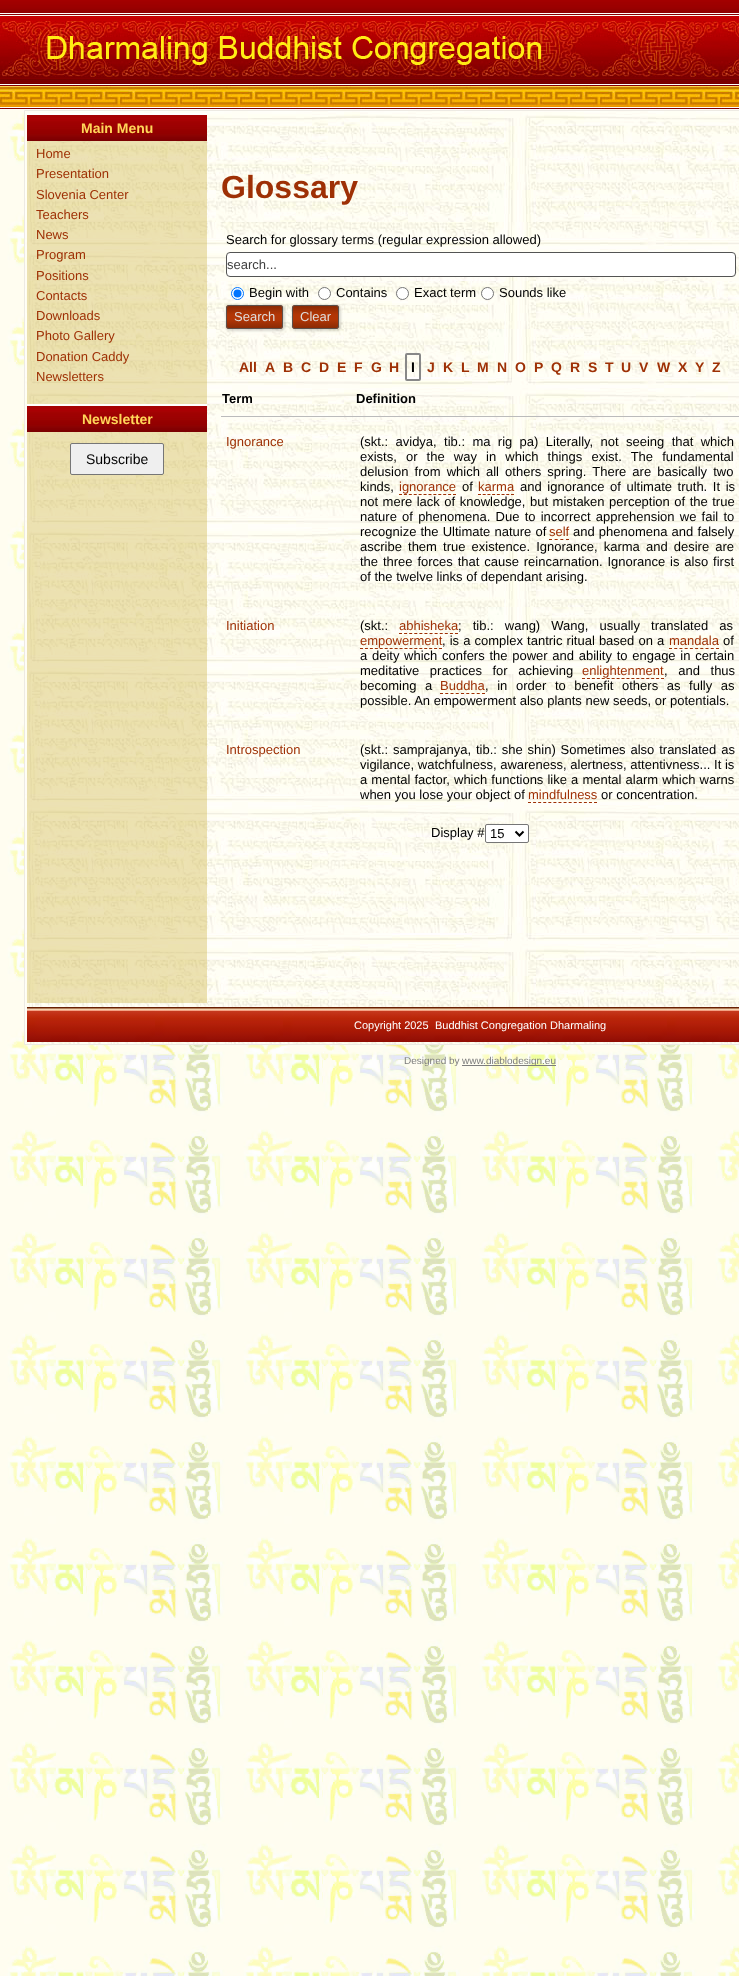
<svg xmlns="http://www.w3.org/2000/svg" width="739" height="1976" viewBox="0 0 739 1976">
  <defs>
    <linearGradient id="g1" gradientUnits="userSpaceOnUse" x1="255" y1="305" x2="255" y2="329"><stop offset="0" stop-color="#862904"/><stop offset="0.4" stop-color="#b23606"/><stop offset="0.6" stop-color="#b23606"/><stop offset="1" stop-color="#862904"/></linearGradient>
    <linearGradient id="g2" gradientUnits="userSpaceOnUse" x1="316" y1="305" x2="316" y2="329"><stop offset="0" stop-color="#862904"/><stop offset="0.4" stop-color="#b23606"/><stop offset="0.6" stop-color="#b23606"/><stop offset="1" stop-color="#862904"/></linearGradient>
  </defs>
  <rect width="100%" height="100%" fill="#fff"/>
  <image x="0" y="110" width="739" height="1866" href="img/1.png"/>
  <image x="0" y="0" width="739" height="110" href="img/2.png"/>
  <image x="47" y="36" width="495" height="29" href="img/3.png"/>
  <image x="25" y="111" width="714" height="933" href="img/4.png"/>
  <path d="M24.5 110.5h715v934H24.5z" fill="none" stroke="#edeae3"/>
  <path d="M27 141h180v862H27z" fill="#d1b85169"/>
  <image x="27" y="115" width="180" height="26" href="img/5.png"/>
  <path d="M27 113h180v2H27z" fill="#fff"/>
  <image x="27" y="406" width="180" height="26" href="img/5.png"/>
  <path d="M27 404h180v2H27z" fill="#fff"/>
  <rect x="70.5" y="443.5" width="93" height="31" rx="1.5" fill="#efefef" stroke="#767676"/>
  <rect x="226.5" y="252.5" width="509" height="24" rx="3.5" fill="#fff" stroke="#545454"/>
  <circle cx="237.5" cy="293.5" r="6" fill="#fff" stroke="#0075ff"/>
  <circle cx="237.5" cy="293.5" r="4" fill="#0075ff"/>
  <circle cx="324.5" cy="293.5" r="6" fill="#fff" stroke="#767676"/>
  <circle cx="402.5" cy="293.5" r="6" fill="#fff" stroke="#767676"/>
  <circle cx="487.5" cy="293.5" r="6" fill="#fff" stroke="#767676"/>
  <rect x="226" y="305" width="59" height="26" rx="4" fill="#00000026" filter="blur(1px)"/>
  <rect x="226" y="305" width="57" height="24" rx="3" fill="url(#g1)"/>
  <rect x="226.5" y="305.5" width="56" height="23" rx="2.5" fill="none" stroke="#545454e6"/>
  <rect x="292" y="305" width="49" height="26" rx="4" fill="#00000026" filter="blur(1px)"/>
  <rect x="292" y="305" width="47" height="24" rx="3" fill="url(#g2)"/>
  <rect x="292.5" y="305.5" width="46" height="23" rx="2.5" fill="none" stroke="#545454e6"/>
  <rect x="406" y="354" width="14" height="26" rx="1" fill="none" stroke="#888" stroke-width="2"/>
  <path d="M221 416h518v1H221z" fill="#bbb"/>
  <path d="M399 494.5H456" fill="none" stroke="#9e3005" stroke-dasharray="3 1.91"/>
  <path d="M478 494.5H514" fill="none" stroke="#9e3005" stroke-dasharray="3 1.71"/>
  <path d="M549 539.5H569" fill="none" stroke="#9e3005" stroke-dasharray="3 2.67"/>
  <path d="M399 633.5H458" fill="none" stroke="#9e3005" stroke-dasharray="3 2.09"/>
  <path d="M360 648.5H442" fill="none" stroke="#9e3005" stroke-dasharray="3 1.94"/>
  <path d="M669 648.5H719" fill="none" stroke="#9e3005" stroke-dasharray="3 2.22"/>
  <path d="M582 678.5H664" fill="none" stroke="#9e3005" stroke-dasharray="3 1.94"/>
  <path d="M440 693.5H485" fill="none" stroke="#9e3005" stroke-dasharray="3 2.25"/>
  <path d="M528 802.5H597" fill="none" stroke="#9e3005" stroke-dasharray="3 2.08"/>
  <rect x="485.5" y="824.5" width="43" height="18" rx="1.5" fill="#fff" stroke="#767676"/>
  <path d="M515.5 831.5L519.5 835.5L523.5 831.5" fill="none" stroke="#000" stroke-width="2"/>
  <image x="27" y="1008" width="712" height="34" href="img/6.png"/>
  <path d="M27 1007h712v1H27z" fill="#692003"/>
  <path d="M462 1065h94v1H462z" fill="#7d7d7d"/>
  <text x="81" y="133" font-family="Liberation Sans" font-size="14" font-weight="bold" fill="#ffd659">Main Menu</text>
  <g font-family="Liberation Sans" font-size="13" fill="#9e3005">
    <text x="36" y="158">Home</text>
    <text x="36" y="178">Presentation</text>
    <text x="36" y="199">Slovenia Center</text>
    <text x="36" y="219">Teachers</text>
    <text x="36" y="239">News</text>
    <text x="36" y="259">Program</text>
    <text x="36" y="280">Positions</text>
    <text x="36" y="300">Contacts</text>
    <text x="36" y="320">Downloads</text>
    <text x="36" y="340">Photo Gallery</text>
    <text x="36" y="361">Donation Caddy</text>
    <text x="36" y="381">Newsletters</text>
  </g>
  <text x="82" y="424" font-family="Liberation Sans" font-size="14" font-weight="bold" fill="#ffd659">Newsletter</text>
  <text x="86" y="464" font-family="Liberation Sans" font-size="14" fill="#000">Subscribe</text>
  <text x="221" y="198" font-family="Liberation Sans" font-size="32" font-weight="bold" fill="#9e3005">Glossary</text>
  <text x="226" y="244" font-family="Liberation Sans" font-size="13" fill="#000">Search for glossary terms (regular expression allowed)</text>
  <text x="227" y="269" font-family="Liberation Sans" font-size="13" fill="#404040">search...</text>
  <g font-family="Liberation Sans" font-size="13" fill="#000">
    <text x="249" y="297">Begin with</text>
    <text x="336" y="297">Contains</text>
    <text x="414" y="297">Exact term</text>
    <text x="499" y="297">Sounds like</text>
  </g>
  <g font-family="Liberation Sans" font-size="13" fill="#dedede">
    <text x="234" y="321">Search</text>
    <text x="300" y="321">Clear</text>
  </g>
  <g font-family="Liberation Sans" font-size="14" font-weight="bold" fill="#9e3005">
    <text x="239" y="372">All</text>
    <text x="265" y="372">A</text>
    <text x="283" y="372">B</text>
    <text x="301" y="372">C</text>
    <text x="319" y="372">D</text>
    <text x="337" y="372">E</text>
    <text x="354" y="372">F</text>
    <text x="371" y="372">G</text>
    <text x="389" y="372">H</text>
  </g>
  <text x="411" y="372" font-family="Liberation Sans" font-size="14" font-weight="bold" fill="#000">I</text>
  <g font-family="Liberation Sans" font-size="14" font-weight="bold" fill="#9e3005">
    <text x="427" y="372">J</text>
    <text x="443" y="372">K</text>
    <text x="461" y="372">L</text>
    <text x="477" y="372">M</text>
    <text x="497" y="372">N</text>
    <text x="515" y="372">O</text>
    <text x="534" y="372">P</text>
    <text x="551" y="372">Q</text>
    <text x="570" y="372">R</text>
    <text x="588" y="372">S</text>
    <text x="605" y="372">T</text>
    <text x="621" y="372">U</text>
    <text x="639" y="372">V</text>
    <text x="657" y="372">W</text>
    <text x="678" y="372">X</text>
    <text x="695" y="372">Y</text>
    <text x="712" y="372">Z</text>
  </g>
  <g font-family="Liberation Sans" font-size="13" font-weight="bold" fill="#000">
    <text x="222" y="403">Term</text>
    <text x="356" y="403">Definition</text>
  </g>
  <text x="226" y="446" font-family="Liberation Sans" font-size="13" fill="#9e3005">Ignorance</text>
  <g font-family="Liberation Sans" font-size="13" fill="#000">
    <text x="360" y="446" word-spacing="3.75">(skt.: avidya, tib.: ma rig pa) Literally, not seeing that which</text>
    <text x="360" y="461" word-spacing="5.5">exists, or the way in which things exist. The fundamental</text>
    <text x="360" y="476" word-spacing="2.5">delusion from which all others spring. There are basically two</text>
    <text x="360" y="491">kinds,</text>
  </g>
  <text x="399" y="491" font-family="Liberation Sans" font-size="13" fill="#9e3005">ignorance</text>
  <text x="462" y="491" font-family="Liberation Sans" font-size="13" fill="#000">of</text>
  <text x="478" y="491" font-family="Liberation Sans" font-size="13" fill="#9e3005">karma</text>
  <g font-family="Liberation Sans" font-size="13" fill="#000">
    <text x="520" y="491" word-spacing="2">and ignorance of ultimate truth. It is</text>
    <text x="360" y="506" word-spacing="0.9">not mere lack of knowledge, but mistaken perception of the true</text>
    <text x="360" y="521" word-spacing="1.6">nature of phenomena. Due to incorrect apprehension we fail to</text>
    <text x="360" y="536" word-spacing="0.5">recognize the Ultimate nature of</text>
  </g>
  <text x="549" y="536" font-family="Liberation Sans" font-size="13" fill="#9e3005">self</text>
  <g font-family="Liberation Sans" font-size="13" fill="#000">
    <text x="573" y="536" word-spacing="0.5">and phenomena and falsely</text>
    <text x="360" y="551" word-spacing="2.5">ascribe them true existence. Ignorance, karma and desire are</text>
    <text x="360" y="566" word-spacing="1.25">the three forces that cause reincarnation. Ignorance is also first</text>
    <text x="360" y="581">of the twelve links of dependant arising.</text>
  </g>
  <text x="226" y="630" font-family="Liberation Sans" font-size="13" fill="#9e3005">Initiation</text>
  <text x="360" y="630" font-family="Liberation Sans" font-size="13" fill="#000">(skt.:</text>
  <text x="399" y="630" font-family="Liberation Sans" font-size="13" fill="#9e3005">abhisheka</text>
  <text x="458" y="630" word-spacing="7.5" font-family="Liberation Sans" font-size="13" fill="#000">; tib.: wang) Wang, usually translated as</text>
  <text x="360" y="645" font-family="Liberation Sans" font-size="13" fill="#9e3005">empowerment</text>
  <text x="442" y="645" word-spacing="0.5" font-family="Liberation Sans" font-size="13" fill="#000">, is a complex tantric ritual based on a</text>
  <text x="669" y="645" font-family="Liberation Sans" font-size="13" fill="#9e3005">mandala</text>
  <g font-family="Liberation Sans" font-size="13" fill="#000">
    <text x="723" y="645">of</text>
    <text x="360" y="660" word-spacing="1.1">a deity which confers the power and ability to engage in certain</text>
    <text x="360" y="675" word-spacing="7">meditative practices for achieving</text>
  </g>
  <text x="582" y="675" font-family="Liberation Sans" font-size="13" fill="#9e3005">enlightenment</text>
  <g font-family="Liberation Sans" font-size="13" fill="#000">
    <text x="664" y="675" word-spacing="7">, and thus</text>
    <text x="360" y="690" word-spacing="5">becoming a</text>
  </g>
  <text x="440" y="690" font-family="Liberation Sans" font-size="13" fill="#9e3005">Buddha</text>
  <g font-family="Liberation Sans" font-size="13" fill="#000">
    <text x="485" y="690" word-spacing="5">, in order to benefit others as fully as</text>
    <text x="360" y="705">possible. An empowerment also plants new seeds, or potentials.</text>
  </g>
  <text x="226" y="754" font-family="Liberation Sans" font-size="13" fill="#9e3005">Introspection</text>
  <g font-family="Liberation Sans" font-size="13" fill="#000">
    <text x="360" y="754" word-spacing="1.25">(skt.: samprajanya, tib.: she shin) Sometimes also translated as</text>
    <text x="360" y="769">vigilance, watchfulness, awareness, alertness, attentivness... It is</text>
    <text x="360" y="784" word-spacing="0.5">a mental factor, which functions like a mental alarm which warns</text>
    <text x="360" y="799">when you lose your object of</text>
  </g>
  <text x="528" y="799" font-family="Liberation Sans" font-size="13" fill="#9e3005">mindfulness</text>
  <g font-family="Liberation Sans" font-size="13" fill="#000">
    <text x="601" y="799">or concentration.</text>
    <text x="431" y="837">Display #</text>
    <text x="490" y="838">15</text>
  </g>
  <g font-family="Liberation Sans" font-size="11" fill="#fff">
    <text x="354" y="1029">Copyright 2025</text>
    <text x="435" y="1029">Buddhist Congregation Dharmaling</text>
  </g>
  <g font-family="Liberation Sans" font-size="10" fill="#7d7d7d">
    <text x="404" y="1064">Designed by</text>
    <text x="462" y="1064">www.diablodesign.eu</text>
  </g>
</svg>
